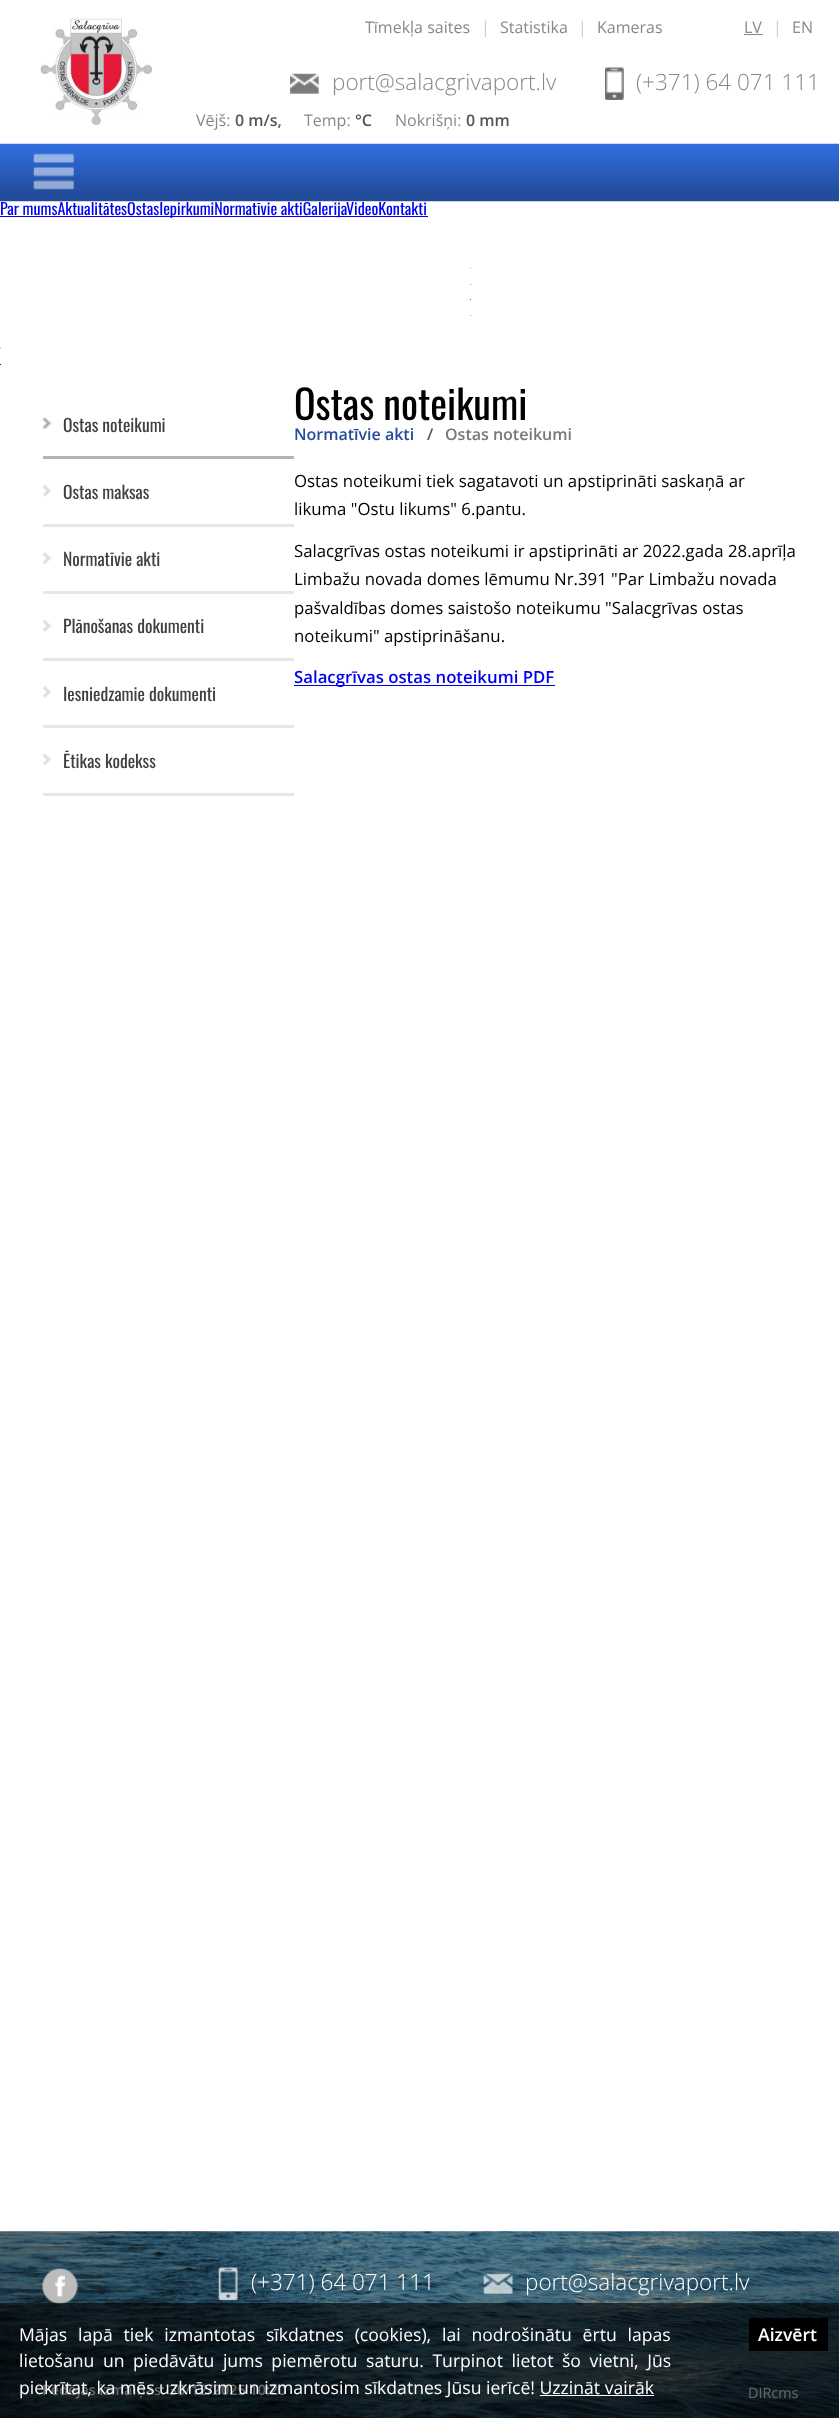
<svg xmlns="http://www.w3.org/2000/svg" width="839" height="2418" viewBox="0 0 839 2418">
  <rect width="100%" height="100%" fill="#fff"/>
  <image x="40" y="18" width="112" height="107" href="img/1.png"/>
  <path d="M744 34h19v1H744z" fill="#888"/>
  <image x="290" y="73" width="29" height="21" href="img/2.png"/>
  <image x="605" y="67" width="19" height="33" href="img/3.png"/>
  <image x="0" y="143" width="839" height="59" href="img/5.png"/>
  <image x="33" y="153" width="41" height="37" href="img/4.png"/>
  <path d="M0 216h346v1H0z" fill="#00e"/>
  <path d="M346 216h82v1H346z" fill="#00e"/>
  <image x="470" y="267" width="1" height="2" href="img/6.png"/>
  <image x="470" y="283" width="2" height="2" href="img/7.png"/>
  <image x="470" y="298" width="2" height="2" href="img/8.png"/>
  <image x="470" y="315" width="2" height="2" href="img/9.png"/>
  <image x="0" y="347" width="2" height="2" href="img/10.png"/>
  <image x="0" y="363" width="2" height="2" href="img/11.png"/>
  <image x="42" y="417" width="10" height="12" href="img/12.png"/>
  <path d="M43 456h251v3H43z" fill="#b4b4b4"/>
  <image x="42" y="485" width="10" height="12" href="img/13.png"/>
  <path d="M43 524h251v3H43z" fill="#e6e6e6"/>
  <image x="42" y="552" width="10" height="12" href="img/14.png"/>
  <path d="M43 591h251v3H43z" fill="#e6e6e6"/>
  <image x="42" y="620" width="10" height="12" href="img/13.png"/>
  <path d="M43 658h251v3H43z" fill="#e6e6e6"/>
  <image x="42" y="686" width="9" height="12" href="img/15.png"/>
  <path d="M43 725h251v3H43z" fill="#e6e6e6"/>
  <image x="42" y="753" width="10" height="12" href="img/16.png"/>
  <path d="M43 793h251v3H43z" fill="#e6e6e6"/>
  <path d="M294 685h261v1H294z" fill="#00e"/>
  <image x="0" y="2231" width="839" height="187" href="img/17.png"/>
  <image x="42" y="2268" width="36" height="36" href="img/18.png"/>
  <image x="218" y="2267" width="20" height="33" href="img/19.png"/>
  <image x="483" y="2273" width="30" height="21" href="img/20.png"/>
  <text x="365" y="33" font-family="Open Sans" font-size="16" fill="#888">Tīmekļa saites</text>
  <text x="481" y="33" font-family="Open Sans" font-size="16" fill="#ccc">|</text>
  <text x="500" y="33" font-family="Open Sans" font-size="16" fill="#888">Statistika</text>
  <text x="578" y="33" font-family="Open Sans" font-size="16" fill="#ccc">|</text>
  <g font-family="Open Sans" font-size="16" fill="#888">
    <text x="597" y="33">Kameras</text>
    <text x="744" y="33">LV</text>
  </g>
  <text x="773" y="33" font-family="Open Sans" font-size="16" fill="#ccc">|</text>
  <text x="792" y="33" font-family="Open Sans" font-size="16" fill="#888">EN</text>
  <g font-family="Open Sans" font-size="22.5" font-weight="300" fill="#888">
    <text x="332" y="90">port@salacgrivaport.lv</text>
    <text x="636" y="90">(+371) 64 071 111</text>
  </g>
  <text x="196" y="126" font-family="Open Sans" font-size="16" fill="#888">Vējš:</text>
  <text x="235" y="126" font-family="Open Sans" font-size="16" font-weight="600" fill="#555">0 m/s,</text>
  <text x="304" y="126" font-family="Open Sans" font-size="16" fill="#888">Temp:</text>
  <text x="355" y="126" font-family="Open Sans" font-size="16" font-weight="600" fill="#555">°C</text>
  <text x="395" y="126" font-family="Open Sans" font-size="16" fill="#888">Nokrišņi:</text>
  <text x="466" y="126" font-family="Open Sans" font-size="16" font-weight="600" fill="#555">0 mm</text>
  <g font-family="Oswald" font-size="16" fill="#00e">
    <text x="0" y="215">Par mumsAktualitātesOstasIepirkumiNormatīvie aktiGalerija</text>
    <text x="346" y="215">VideoKontakti</text>
  </g>
  <g font-family="Oswald" font-size="17.6" fill="#404040">
    <text x="63" y="432">Ostas noteikumi</text>
    <text x="63" y="499">Ostas maksas</text>
    <text x="63" y="566">Normatīvie akti</text>
    <text x="63" y="633">Plānošanas dokumenti</text>
    <text x="63" y="701">Iesniedzamie dokumenti</text>
    <text x="63" y="768">Ētikas kodekss</text>
  </g>
  <text x="294" y="420" font-family="Oswald" font-size="40" fill="#000">Ostas noteikumi</text>
  <text x="294" y="440" font-family="Open Sans" font-size="16" font-weight="600" fill="#224b9a">Normatīvie akti</text>
  <text x="427" y="440" font-family="Open Sans" font-size="16" font-weight="600" fill="#555">/</text>
  <text x="445" y="440" font-family="Open Sans" font-size="16" font-weight="600" fill="#777">Ostas noteikumi</text>
  <g font-family="Open Sans" font-size="16.8" fill="#000">
    <text x="294" y="487">Ostas noteikumi tiek sagatavoti un apstiprināti saskaņā ar</text>
    <text x="294" y="515">likuma "Ostu likums" 6.pantu.</text>
    <text x="294" y="557">Salacgrīvas ostas noteikumi ir apstiprināti ar 2022.gada 28.aprīļa</text>
    <text x="294" y="585">Limbažu novada domes lēmumu Nr.391 "Par Limbažu novada</text>
    <text x="294" y="614">pašvaldības domes saistošo noteikumu "Salacgrīvas ostas</text>
    <text x="294" y="642">noteikumi" apstiprināšanu.</text>
  </g>
  <text x="294" y="683" font-family="Open Sans" font-size="16.8" font-weight="600" fill="#00e">Salacgrīvas ostas noteikumi PDF</text>
  <g font-family="Open Sans" font-size="22.5" font-weight="300" fill="#fff">
    <text x="251" y="2290">(+371) 64 071 111</text>
    <text x="525" y="2290">port@salacgrivaport.lv</text>
  </g>
  <text x="42" y="2395" font-family="Open Sans" font-size="14.4" font-weight="600" fill="#fff">Pēdējās izmaiņas: 30/12/2025 10:20</text>
  <text x="748" y="2398" font-family="Open Sans" font-size="14.4" fill="#fff">DIRcms</text>
  <path d="M0 2303h839v115H0z" fill="#00000099"/>
  <g font-family="Open Sans" font-size="17.6" fill="#fff">
    <text x="19" y="2341" word-spacing="6.25">Mājas lapā tiek izmantotas sīkdatnes (cookies), lai nodrošinātu ērtu lapas</text>
    <text x="19" y="2367" word-spacing="4">lietošanu un piedāvātu jums piemērotu saturu. Turpinot lietot šo vietni, Jūs</text>
    <text x="19" y="2394">piekrītat, ka mēs uzkrāsim un izmantosim sīkdatnes Jūsu ierīcē! Uzzināt vairāk</text>
  </g>
  <path d="M540 2395h114v1H540z" fill="#fff"/>
  <path d="M749 2318h79v33H749z" fill="#000"/>
  <text x="758" y="2341" font-family="Open Sans" font-size="17.6" font-weight="600" fill="#fff">Aizvērt</text>
</svg>
